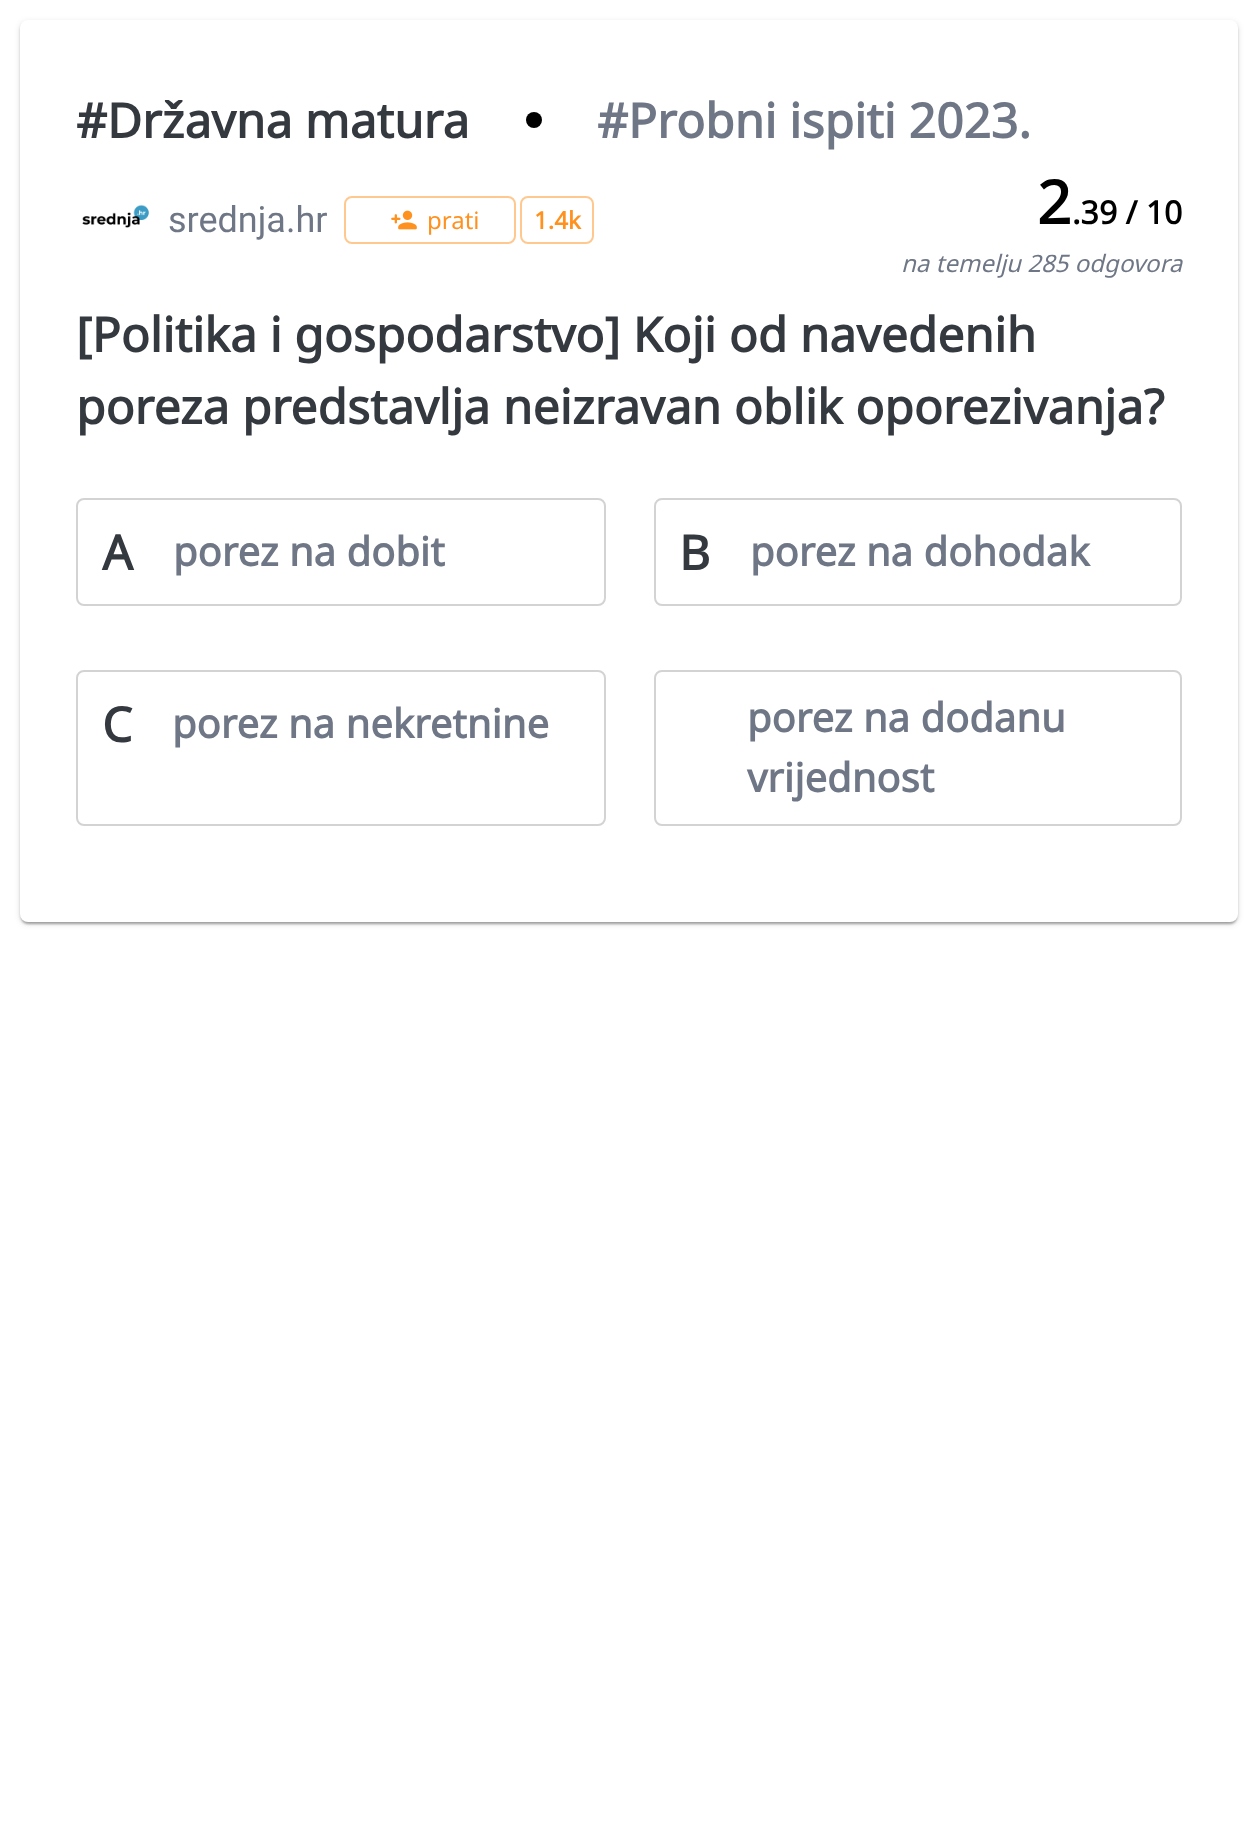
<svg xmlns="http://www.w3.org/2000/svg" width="1257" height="1846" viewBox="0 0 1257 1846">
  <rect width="100%" height="100%" fill="#fff"/>
  <rect x="20" y="22" width="1218" height="902" rx="8" fill="#0000001f" filter="blur(3px)"/>
  <rect x="20" y="22" width="1218" height="902" rx="8" fill="#00000024" filter="blur(1px)"/>
  <rect x="22" y="26" width="1214" height="898" rx="6" fill="#00000033" filter="blur(1px)"/>
  <rect x="20" y="20" width="1218" height="902" rx="8" fill="#fff"/>
  <circle cx="534" cy="120" r="8" fill="#000"/>
  <image x="82" y="204" width="67" height="24" href="img/1.png"/>
  <rect x="345" y="197" width="170" height="46" rx="7" fill="none" stroke="#ffc88f" stroke-width="2"/>
  <image x="391" y="210" width="26" height="20" href="img/2.png"/>
  <rect x="521" y="197" width="72" height="46" rx="7" fill="none" stroke="#ffc88f" stroke-width="2"/>
  <rect x="77" y="499" width="528" height="106" rx="7" fill="none" stroke="#d3d3d3" stroke-width="2"/>
  <rect x="655" y="499" width="526" height="106" rx="7" fill="none" stroke="#d3d3d3" stroke-width="2"/>
  <rect x="77" y="671" width="528" height="154" rx="7" fill="none" stroke="#d3d3d3" stroke-width="2"/>
  <rect x="655" y="671" width="526" height="154" rx="7" fill="none" stroke="#d3d3d3" stroke-width="2"/>
  <text x="76" y="138" font-family="Noto Sans" font-size="48" font-weight="bold" fill="#34383f">#Državna matura</text>
  <text x="597" y="138" font-family="Noto Sans" font-size="48" font-weight="bold" fill="#6f7786">#Probni ispiti 2023.</text>
  <text x="168" y="232" font-family="Roboto" font-size="36" fill="#6f7786">srednja.hr</text>
  <text x="427" y="229" font-family="Noto Sans" font-size="24" fill="#ff911f">prati</text>
  <text x="534" y="229" font-family="Noto Sans" font-size="24" font-weight="bold" fill="#ff911f">1.4k</text>
  <text x="1037" y="224" font-family="Noto Sans" font-size="60" font-weight="bold" fill="#000">2</text>
  <text x="1072" y="224" font-family="Noto Sans" font-size="32" font-weight="bold" fill="#000">.39 / 10</text>
  <text x="901" y="272" font-family="Noto Sans" font-size="24" font-style="italic" fill="#6f7786">na temelju 285 odgovora</text>
  <g font-family="Noto Sans" font-size="48" font-weight="bold" fill="#34383f">
    <text x="76" y="352">[Politika i gospodarstvo] Koji od navedenih</text>
    <text x="76" y="424">poreza predstavlja neizravan oblik oporezivanja?</text>
    <text x="102" y="570">A</text>
  </g>
  <text x="173" y="566" font-family="Noto Sans" font-size="40" font-weight="bold" fill="#6f7786">porez na dobit</text>
  <text x="679" y="570" font-family="Noto Sans" font-size="48" font-weight="bold" fill="#34383f">B</text>
  <text x="750" y="566" font-family="Noto Sans" font-size="40" font-weight="bold" fill="#6f7786">porez na dohodak</text>
  <text x="102" y="742" font-family="Noto Sans" font-size="48" font-weight="bold" fill="#34383f">C</text>
  <g font-family="Noto Sans" font-size="40" font-weight="bold" fill="#6f7786">
    <text x="172" y="738">porez na nekretnine</text>
    <text x="747" y="732">porez na dodanu</text>
    <text x="747" y="792">vrijednost</text>
  </g>
</svg>
